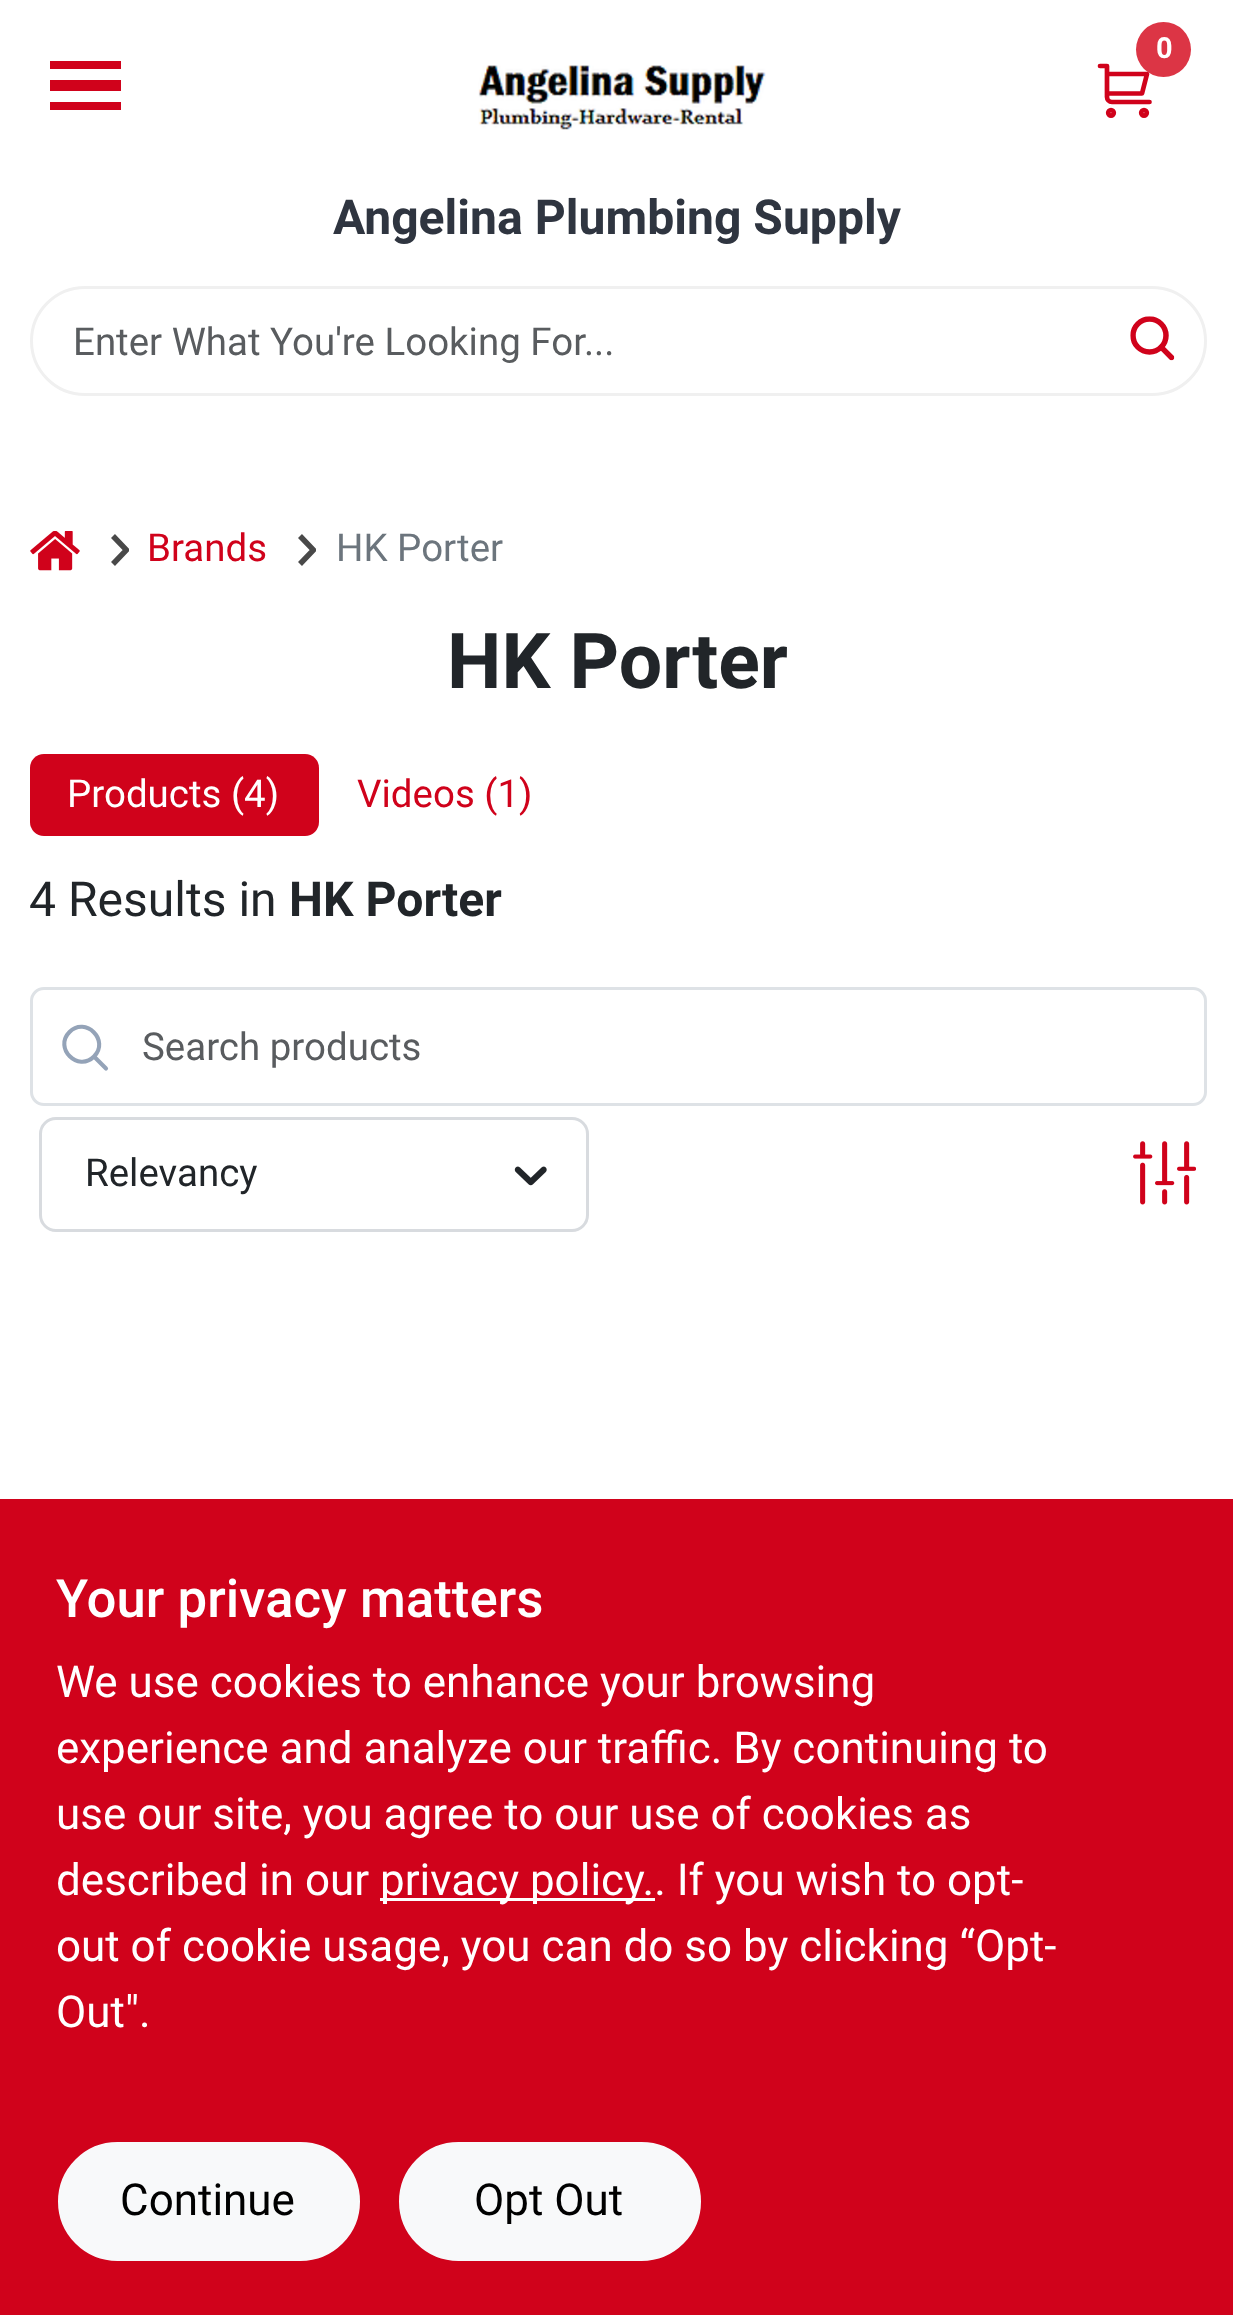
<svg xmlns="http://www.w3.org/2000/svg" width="1233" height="2315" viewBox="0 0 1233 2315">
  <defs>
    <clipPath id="clip1"><path d="M99 531h30v38H99z"/></clipPath>
    <clipPath id="clip2"><path d="M286 531h30v38H286z"/></clipPath>
  </defs>
  <rect width="100%" height="100%" fill="#fff"/>
  <path d="M1100 66H1107V97C1107 99.5 1109 102 1112 102H1149.5M1108 74H1147L1142 93.5H1108" fill="none" stroke="#d0021b" stroke-width="4.7" stroke-linecap="round" stroke-linejoin="round"/>
  <circle cx="1163.5" cy="49.5" r="27.5" fill="#dc3545"/>
  <circle cx="1111" cy="112.8" r="2.8" fill="none" stroke="#d0021b" stroke-width="4.7"/>
  <circle cx="1144" cy="112.8" r="2.8" fill="none" stroke="#d0021b" stroke-width="4.7"/>
  <path d="M50 61h71v8H50z" fill="#d0021b"/>
  <path d="M50 80h71v11H50z" fill="#d0021b"/>
  <path d="M50 102h71v8H50z" fill="#d0021b"/>
  <image x="478" y="65" width="288" height="65" href="img/1.png"/>
  <rect x="31.5" y="287.5" width="1174" height="107" rx="53.5" fill="none" stroke="#f0f0f0" stroke-width="3"/>
  <image x="1130" y="316" width="45" height="45" href="img/2.png"/>
  <image x="30" y="531" width="50" height="40" href="img/3.png"/>
  <g clip-path="url(#clip1)">
    <path d="M113 536L126.5 550L113 564" fill="none" stroke="#494949" stroke-width="5.5"/>
  </g>
  <g clip-path="url(#clip2)">
    <path d="M300 536L313.5 550L300 564" fill="none" stroke="#494949" stroke-width="5.5"/>
  </g>
  <rect x="30" y="754" width="289" height="82" rx="14" fill="#d0021b"/>
  <path d="M106 1068.5L94 1056.5M94 1056.5C110 1040.5 85.5 1016 69.5 1032C53.5 1048 78 1072.5 94 1056.5Z" fill="none" stroke="#94a3b8" stroke-width="4.1" stroke-linecap="round" stroke-linejoin="round"/>
  <rect x="31.5" y="988.5" width="1174" height="116" rx="12.5" fill="none" stroke="#dee2e6" stroke-width="3"/>
  <rect x="40.5" y="1118.5" width="547" height="112" rx="15.5" fill="none" stroke="#d8dbdf" stroke-width="3"/>
  <image x="514" y="1166" width="33" height="20" href="img/4.png"/>
  <image x="1133" y="1141" width="63" height="64" href="img/5.png"/>
  <path d="M0 1499h1233v816H0z" fill="#d0021b"/>
  <path d="M380 1898h275v3H380z" fill="#fff"/>
  <rect x="59.5" y="2143.5" width="299" height="116" rx="58" fill="#f8f9fa" stroke="#f8f9fa" stroke-width="3"/>
  <rect x="400.5" y="2143.5" width="299" height="116" rx="58" fill="#f8f9fa" stroke="#f8f9fa" stroke-width="3"/>
  <text x="1156" y="58" font-family="Roboto" font-size="29" font-weight="bold" letter-spacing="-3" fill="#fff">0</text>
  <text x="333" y="234" font-family="Roboto" font-size="48.1" font-weight="bold" fill="#2f3540">Angelina Plumbing Supply</text>
  <text x="73" y="355" font-family="Roboto" font-size="38.5" fill="#595c5f">Enter What You're Looking For...</text>
  <text x="147" y="561" font-family="Roboto" font-size="38.5" fill="#d0021b">Brands</text>
  <text x="336" y="561" font-family="Roboto" font-size="38.5" fill="#6c757d">HK Porter</text>
  <text x="447" y="688" font-family="Roboto" font-size="77" font-weight="bold" fill="#212529">HK Porter</text>
  <text x="67" y="807" font-family="Roboto" font-size="38.5" fill="#fff">Products (4)</text>
  <text x="357" y="807" font-family="Roboto" font-size="38.5" fill="#d0021b">Videos (1)</text>
  <text x="29" y="916" font-family="Roboto" font-size="48.1" fill="#212529">4 Results in</text>
  <text x="289" y="916" font-family="Roboto" font-size="48.1" font-weight="bold" fill="#212529">HK Porter</text>
  <text x="142" y="1060" font-family="Roboto" font-size="38.5" fill="#595c5f">Search products</text>
  <text x="85" y="1186" font-family="Roboto" font-size="38.5" fill="#212529">Relevancy</text>
  <text x="56" y="1617" font-family="Roboto" font-size="52.75" font-weight="500" fill="#fff">Your privacy matters</text>
  <g font-family="Roboto" font-size="44" fill="#fff">
    <text x="56" y="1697">We use cookies to enhance your browsing</text>
    <text x="56" y="1763">experience and analyze our traffic. By continuing to</text>
    <text x="56" y="1829">use our site, you agree to our use of cookies as</text>
    <text x="56" y="1895">described in our</text>
    <text x="380" y="1895">privacy policy.. If you wish to opt-</text>
    <text x="56" y="1961">out of cookie usage, you can do so by clicking “Opt-</text>
    <text x="56" y="2027">Out".</text>
  </g>
  <g font-family="Roboto" font-size="44" fill="#000">
    <text x="120" y="2215">Continue</text>
    <text x="474" y="2215">Opt Out</text>
  </g>
</svg>
